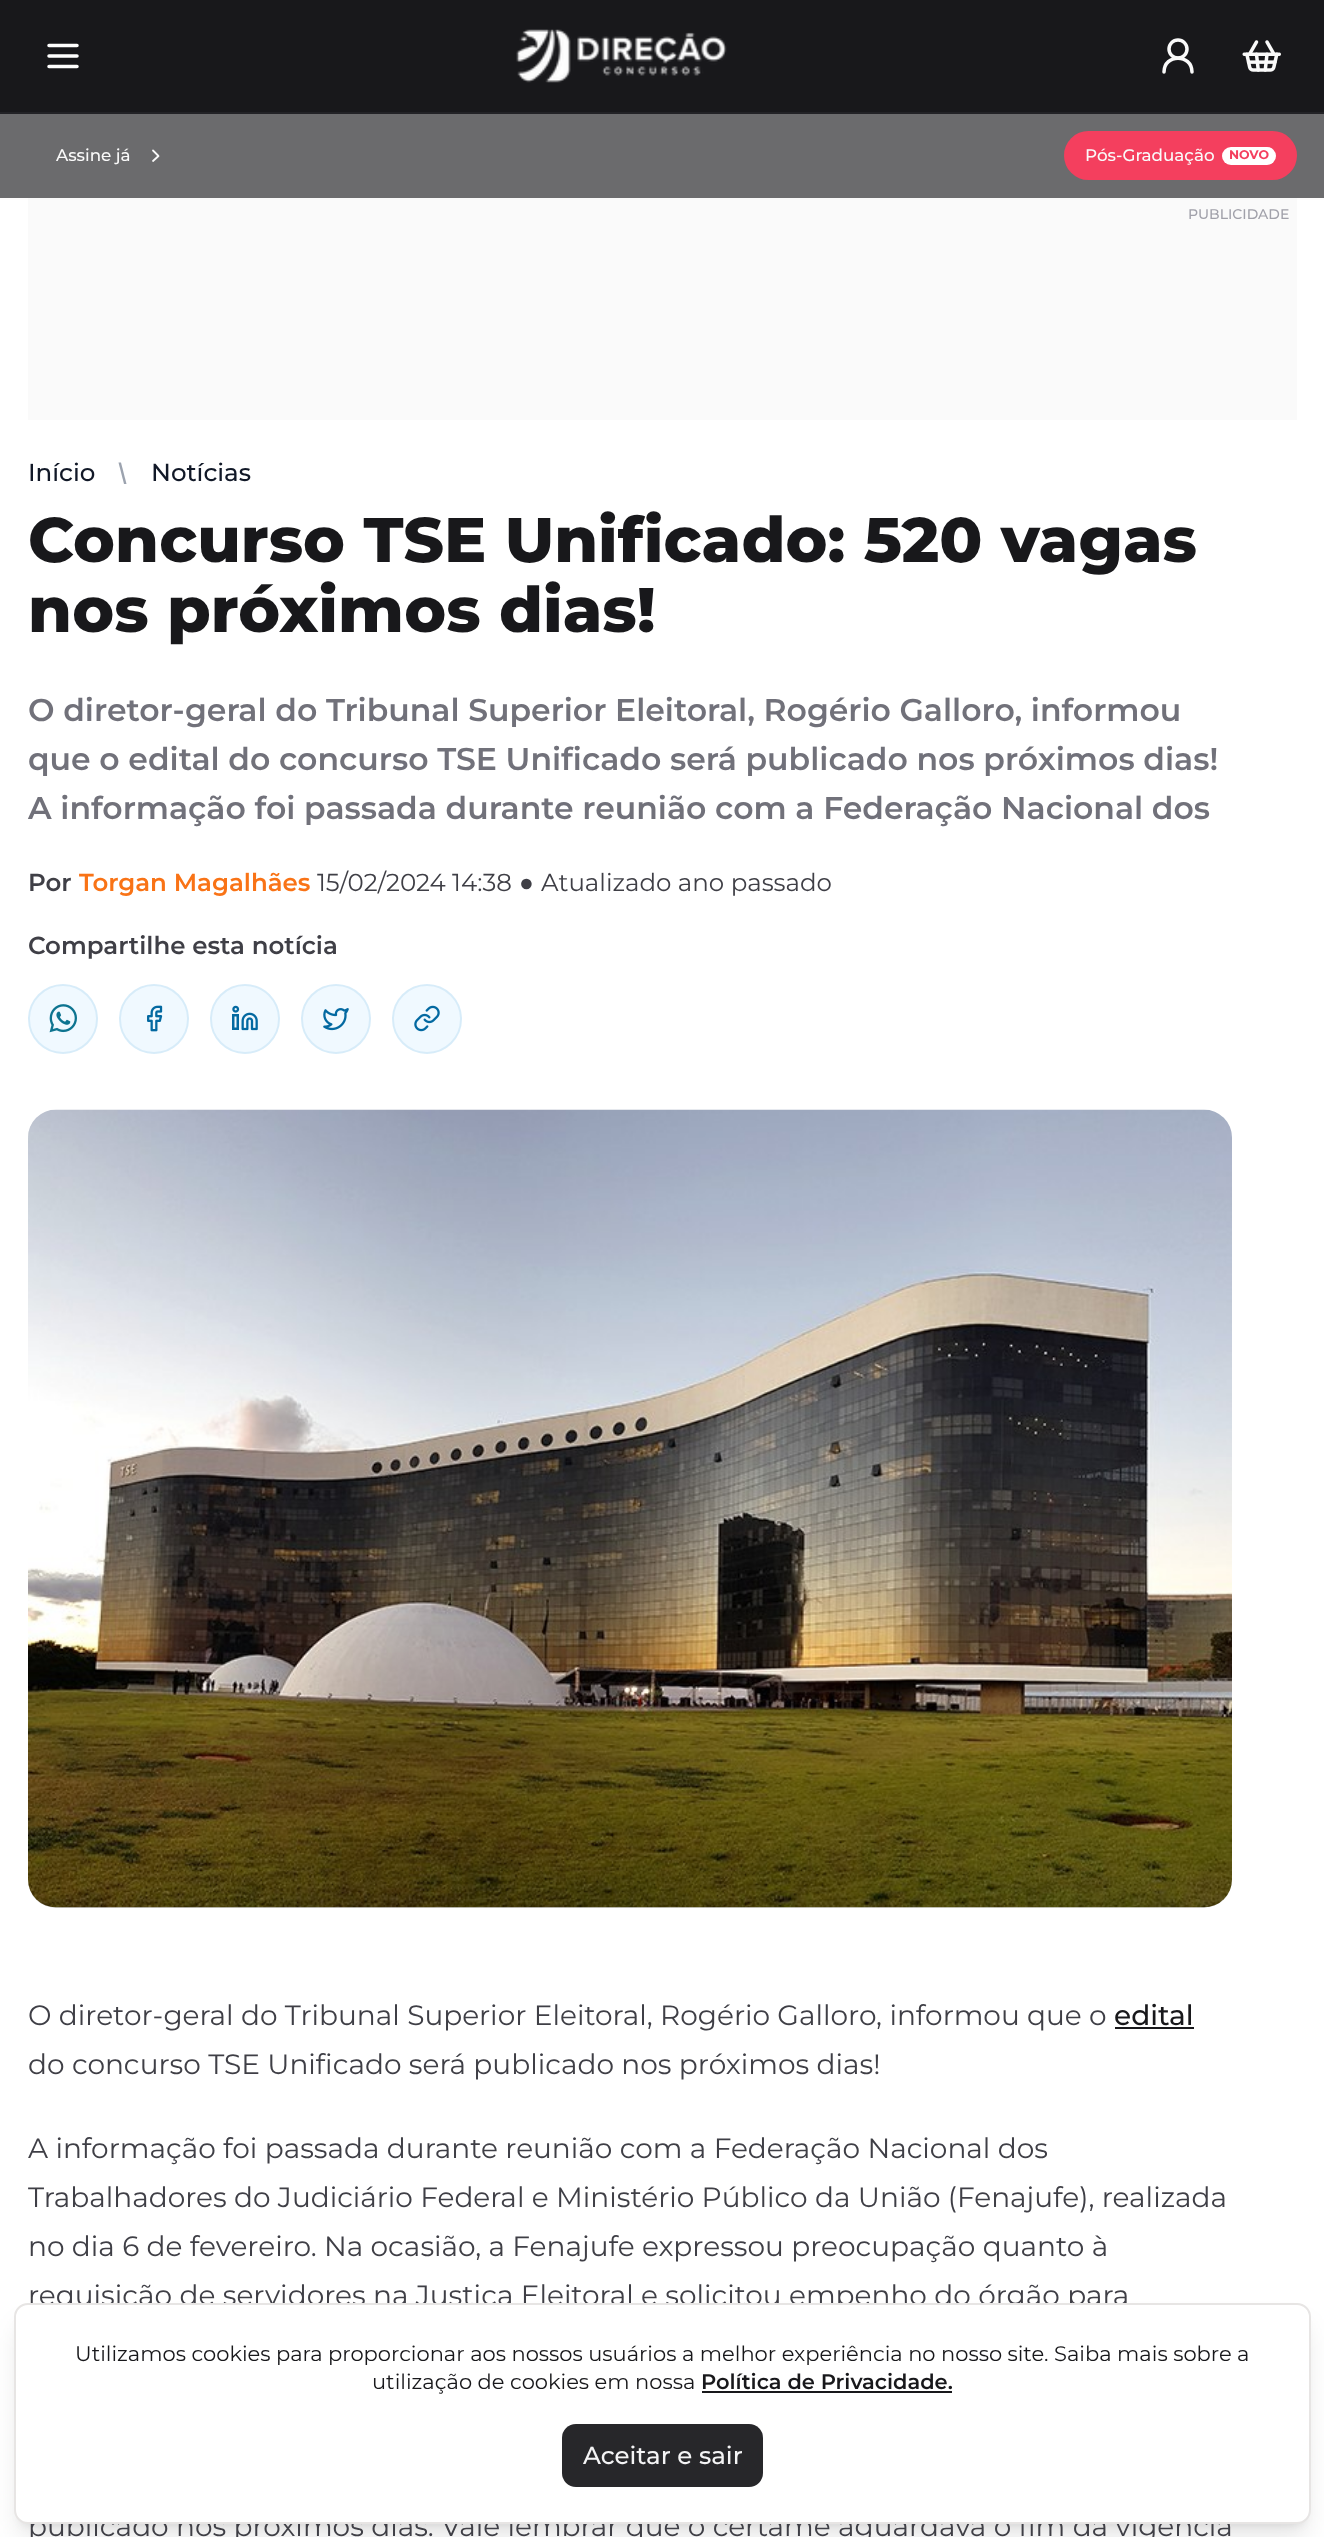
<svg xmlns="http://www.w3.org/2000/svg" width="1324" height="2537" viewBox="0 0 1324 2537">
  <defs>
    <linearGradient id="g1" gradientUnits="userSpaceOnUse" x1="263" y1="2063" x2="997" y2="954"><stop offset="0" stop-color="#d4d4d8"/><stop offset="1" stop-color="#fff"/></linearGradient>
  </defs>
  <rect width="100%" height="100%" fill="#fff"/>
  <path d="M0 114h1324v84H0z" fill="#6b6b6d"/>
  <path d="M0 198h1324v2H0z" fill="#fdfcfc"/>
  <path d="M0 0h1324v112H0z" fill="#18181b"/>
  <path d="M0 112h1324v2H0z" fill="#222226"/>
  <path d="M49 56H77M49 45.5H77M49 66.5H77" fill="none" stroke="#fff" stroke-width="3.5" stroke-linecap="round" stroke-linejoin="round"/>
  <image x="516" y="29" width="211" height="54" href="img/1.png"/>
  <circle cx="1178" cy="49" r="9" fill="none" stroke="#fafafa" stroke-width="3.5"/>
  <path d="M1192 72C1192 53.5 1164 53.5 1164 72" fill="none" stroke="#fafafa" stroke-width="3.5" stroke-linecap="round" stroke-linejoin="round"/>
  <image x="1242" y="40" width="39" height="32" href="img/2.png"/>
  <path d="M153 161L158.5 156L153 150.5" fill="none" stroke="#fafafa" stroke-width="1.8" stroke-linecap="round" stroke-linejoin="round"/>
  <rect x="1064" y="131" width="233" height="49" rx="24.5" fill="#f43f5e"/>
  <rect x="1222" y="147" width="54" height="18" rx="9" fill="#fff"/>
  <path d="M28 200h1269v220H28z" fill="#fafafa"/>
  <path d="M28 198h1269v2H28z" fill="#f8f8f8"/>
  <path d="M118.5 462.5L124 484H126.5L121 462.5Z" fill="#9ca3af"/>
  <circle cx="63" cy="1019" r="35" fill="#f0f9ff"/>
  <circle cx="63" cy="1019" r="34" fill="none" stroke="#0284c71a" stroke-width="2"/>
  <image x="49" y="1004" width="28" height="29" href="img/3.png"/>
  <circle cx="154" cy="1019" r="35" fill="#f0f9ff"/>
  <circle cx="154" cy="1019" r="34" fill="none" stroke="#0284c71a" stroke-width="2"/>
  <image x="147" y="1005" width="16" height="27" href="img/4.png"/>
  <circle cx="245" cy="1019" r="35" fill="#f0f9ff"/>
  <circle cx="245" cy="1019" r="34" fill="none" stroke="#0284c71a" stroke-width="2"/>
  <image x="232" y="1005" width="26" height="26" href="img/5.png"/>
  <circle cx="336" cy="1019" r="35" fill="#f0f9ff"/>
  <circle cx="336" cy="1019" r="34" fill="none" stroke="#0284c71a" stroke-width="2"/>
  <image x="323" y="1008" width="26" height="23" href="img/6.png"/>
  <circle cx="427" cy="1019" r="35" fill="#f0f9ff"/>
  <circle cx="427" cy="1019" r="34" fill="none" stroke="#0284c71a" stroke-width="2"/>
  <image x="414" y="1005" width="26" height="27" href="img/7.png"/>
  <rect x="28" y="1110" width="1204" height="798" rx="28" fill="url(#g1)"/>
  <image x="28" y="1109" width="1204" height="799" href="img/8.png"/>
  <path d="M1115 2027h79v2H1115z" fill="#18181b"/>
  <rect x="21" y="2317" width="1283" height="207" rx="7" fill="#0000001a" filter="blur(5px)"/>
  <rect x="19" y="2326" width="1287" height="210" rx="9" fill="#0000001a" filter="blur(13px)"/>
  <g font-family="Montserrat" font-size="16.75" font-weight="500" fill="#fafafa">
    <text x="56" y="161">Assine já</text>
    <text x="1085" y="161">Pós-Graduação</text>
  </g>
  <text x="1229" y="159" font-family="Montserrat" font-size="12.5" font-weight="bold" fill="#f43f5e">NOVO</text>
  <text x="1188" y="219" font-family="Montserrat" font-size="14" font-weight="500" fill="#a1a1aa">PUBLICIDADE</text>
  <g font-family="Montserrat" font-size="24.5" font-weight="500" fill="#111827">
    <text x="28" y="481">Início</text>
    <text x="151" y="481">Notícias</text>
  </g>
  <g font-family="Montserrat" font-size="63" font-weight="800" fill="#18181b">
    <text x="28" y="562">Concurso TSE Unificado: 520 vagas</text>
    <text x="28" y="632">nos próximos dias!</text>
  </g>
  <g font-family="Montserrat" font-size="31.5" font-weight="600" fill="#71717a">
    <text x="28" y="721">O diretor-geral do Tribunal Superior Eleitoral, Rogério Galloro, informou</text>
    <text x="28" y="770">que o edital do concurso TSE Unificado será publicado nos próximos dias!</text>
    <text x="28" y="819">A informação foi passada durante reunião com a Federação Nacional dos</text>
  </g>
  <text x="28" y="891" font-family="Montserrat" font-size="24.5" font-weight="600" fill="#3f3f46">Por</text>
  <text x="79" y="891" font-family="Montserrat" font-size="24.5" font-weight="600" fill="#f97316">Torgan Magalhães</text>
  <text x="317" y="891" font-family="Montserrat" font-size="24.5" fill="#3f3f46">15/02/2024 14:38</text>
  <text x="519" y="891" font-family="Liberation Sans" font-size="24.5" fill="#3f3f46">●</text>
  <text x="541" y="891" font-family="Montserrat" font-size="24.5" fill="#3f3f46">Atualizado ano passado</text>
  <text x="28" y="954" font-family="Montserrat" font-size="24.5" font-weight="600" fill="#3f3f46">Compartilhe esta notícia</text>
  <text x="28" y="2025" font-family="Montserrat" font-size="28" fill="#3f3f46">O diretor-geral do Tribunal Superior Eleitoral, Rogério Galloro, informou que o</text>
  <text x="1114" y="2025" font-family="Montserrat" font-size="28" font-weight="500" fill="#18181b">edital</text>
  <g font-family="Montserrat" font-size="28" fill="#3f3f46">
    <text x="28" y="2074">do concurso TSE Unificado será publicado nos próximos dias!</text>
    <text x="28" y="2158">A informação foi passada durante reunião com a Federação Nacional dos</text>
    <text x="28" y="2207">Trabalhadores do Judiciário Federal e Ministério Público da União (Fenajufe), realizada</text>
    <text x="28" y="2256">no dia 6 de fevereiro. Na ocasião, a Fenajufe expressou preocupação quanto à</text>
    <text x="28" y="2305">requisição de servidores na Justiça Eleitoral e solicitou empenho do órgão para</text>
    <text x="28" y="2536">publicado nos próximos dias. Vale lembrar que o certame aguardava o fim da vigência</text>
  </g>
  <rect x="15" y="2304" width="1295" height="219" rx="13" fill="#fff" stroke="#e7e5e4" stroke-width="2"/>
  <g font-family="Montserrat" font-size="21" fill="#18181b">
    <text x="75" y="2361">Utilizamos cookies para proporcionar aos nossos usuários a melhor experiência no nosso site. Saiba mais sobre a</text>
    <text x="372" y="2389">utilização de cookies em nossa</text>
  </g>
  <text x="701" y="2389" font-family="Montserrat" font-size="21" font-weight="600" fill="#18181b">Política de Privacidade.</text>
  <path d="M702 2391h250v2H702z" fill="#18181b"/>
  <rect x="562" y="2424" width="201" height="63" rx="14" fill="#27272a"/>
  <text x="583" y="2464" font-family="Montserrat" font-size="24.5" font-weight="500" fill="#f4f4f5">Aceitar e sair</text>
</svg>
